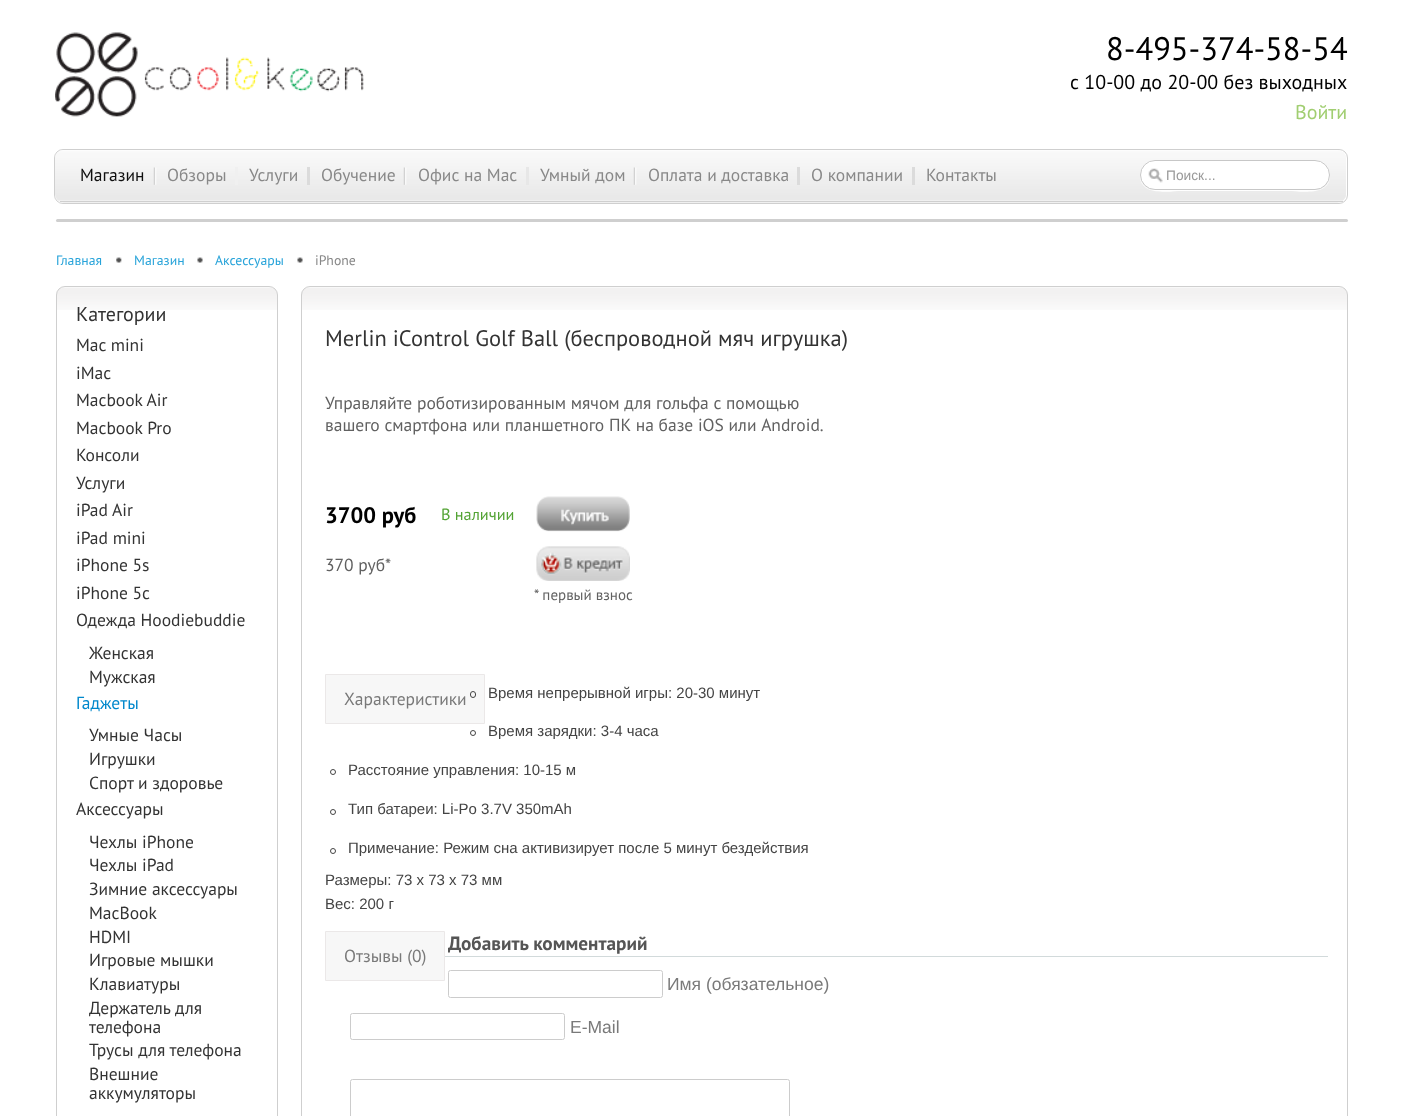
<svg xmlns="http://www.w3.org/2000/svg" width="1403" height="1116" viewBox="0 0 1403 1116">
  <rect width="100%" height="100%" fill="#fff"/>
  <image x="55" y="32" width="309" height="85" href="img/1.png"/>
  <rect x="54.5" y="149.5" width="1293" height="54" rx="8.5" fill="none" stroke="#cfcfcf"/>
  <rect x="55" y="150" width="1291" height="53" rx="9" fill="#f0f0f0"/>
  <image x="55" y="150" width="1291" height="50" href="img/2.png"/>
  <path d="M60 201h1283v1H60z" fill="#cfcfcf"/>
  <image x="153" y="167" width="4" height="18" href="img/3.png"/>
  <path d="M235 167h3v18H235z" fill="#f0f0f0"/>
  <path d="M307 167h3v18H307z" fill="#dbdbdb"/>
  <image x="403" y="167" width="4" height="18" href="img/3.png"/>
  <path d="M526 167h3v18H526z" fill="#e7e7e7"/>
  <image x="633" y="167" width="4" height="18" href="img/3.png"/>
  <path d="M797 167h3v18H797z" fill="#dbdbdb"/>
  <path d="M912 167h3v18H912z" fill="#dbdbdb"/>
  <path d="M1140 175C1139 197 1171 191 1182 191H1288C1299 191 1331 197 1330 175C1330 184 1323 190 1315 190H1155C1147 190 1140 184 1140 175Z" fill="#fff"/>
  <rect x="1140" y="160" width="190" height="30" rx="15" fill="#fff"/>
  <image x="1148" y="168" width="15" height="15" href="img/4.png"/>
  <rect x="1140.5" y="160.5" width="189" height="29" rx="14.5" fill="none" stroke="#c7c7c7"/>
  <rect x="56" y="219" width="1292" height="3" rx="1.5" fill="#cfcfcf"/>
  <image x="116" y="257" width="6" height="6" href="img/5.png"/>
  <image x="197" y="257" width="6" height="6" href="img/6.png"/>
  <image x="297" y="257" width="6" height="6" href="img/6.png"/>
  <image x="56" y="287" width="221" height="23" href="img/7.png"/>
  <rect x="56.5" y="286.5" width="221" height="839" rx="8.5" fill="none" stroke="#cfcfcf"/>
  <image x="301" y="287" width="1046" height="23" href="img/8.png"/>
  <rect x="301.5" y="286.5" width="1046" height="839" rx="8.5" fill="none" stroke="#cfcfcf"/>
  <image x="536" y="496" width="94" height="36" href="img/9.png"/>
  <image x="536" y="546" width="94" height="35" href="img/10.png"/>
  <path d="M325.5 674.5h159v49H325.5z" fill="#f7f7f7" stroke="#ebe8e8"/>
  <rect x="470.5" y="691.5" width="5" height="6" rx="2.5" fill="none" stroke="#444"/>
  <circle cx="473" cy="733" r="2.5" fill="none" stroke="#444"/>
  <circle cx="333" cy="772" r="2.5" fill="none" stroke="#444"/>
  <circle cx="333" cy="812" r="2.5" fill="none" stroke="#444"/>
  <circle cx="333" cy="851" r="2.5" fill="none" stroke="#444"/>
  <path d="M325.5 931.5h119v49H325.5z" fill="#f7f7f7" stroke="#ebe8e8"/>
  <path d="M445 956h883v1H445z" fill="#d2dadb"/>
  <rect x="448.5" y="970.5" width="214" height="27" rx="2" fill="none" stroke="#ccc"/>
  <rect x="350.5" y="1013.5" width="214" height="26" rx="2" fill="none" stroke="#ccc"/>
  <rect x="350.5" y="1079.5" width="439" height="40" rx="2" fill="none" stroke="#ccc"/>
  <text x="1106" y="60" font-family="PT Sans" font-size="32.5" fill="#000">8-495-374-58-54</text>
  <text x="1070" y="89" font-family="PT Sans" font-size="20" fill="#000">с 10-00 до 20-00 без выходных</text>
  <text x="1295" y="119" font-family="PT Sans" font-size="20" fill="#a1ce71">Войти</text>
  <text x="80" y="181" font-family="PT Sans" font-size="17.5" fill="#0f0f0f">Магазин</text>
  <g font-family="PT Sans" font-size="17.5" fill="#888">
    <text x="167" y="181">Обзоры</text>
    <text x="249" y="181">Услуги</text>
    <text x="321" y="181">Обучение</text>
    <text x="418" y="181">Офис на Mac</text>
    <text x="540" y="181">Умный дом</text>
    <text x="648" y="181">Оплата и доставка</text>
    <text x="811" y="181">О компании</text>
    <text x="926" y="181">Контакты</text>
  </g>
  <text x="1166" y="180" font-family="Liberation Sans" font-size="13.75" fill="#999">Поиск...</text>
  <g font-family="PT Sans" font-size="13.75" fill="#27a3d9">
    <text x="56" y="265">Главная</text>
    <text x="134" y="265">Магазин</text>
    <text x="215" y="265">Аксессуары</text>
  </g>
  <text x="315" y="265" font-family="PT Sans" font-size="13.75" fill="#888">iPhone</text>
  <text x="76" y="321" font-family="PT Sans" font-size="20" fill="#333">Категории</text>
  <g font-family="PT Sans" font-size="17.5" fill="#333">
    <text x="76" y="351">Mac mini</text>
    <text x="76" y="379">iMac</text>
    <text x="76" y="406">Macbook Air</text>
    <text x="76" y="434">Macbook Pro</text>
    <text x="76" y="461">Консоли</text>
    <text x="76" y="489">Услуги</text>
    <text x="76" y="516">iPad Air</text>
    <text x="76" y="544">iPad mini</text>
    <text x="76" y="571">iPhone 5s</text>
    <text x="76" y="599">iPhone 5c</text>
    <text x="76" y="626">Одежда Hoodiebuddie</text>
    <text x="89" y="659">Женская</text>
    <text x="89" y="683">Мужская</text>
  </g>
  <text x="76" y="709" font-family="PT Sans" font-size="17.5" fill="#08c">Гаджеты</text>
  <g font-family="PT Sans" font-size="17.5" fill="#333">
    <text x="89" y="741">Умные Часы</text>
    <text x="89" y="765">Игрушки</text>
    <text x="89" y="789">Спорт и здоровье</text>
    <text x="76" y="815">Аксессуары</text>
    <text x="89" y="848">Чехлы iPhone</text>
    <text x="89" y="871">Чехлы iPad</text>
    <text x="89" y="895">Зимние аксессуары</text>
    <text x="89" y="919">MacBook</text>
    <text x="89" y="943">HDMI</text>
    <text x="89" y="966">Игровые мышки</text>
    <text x="89" y="990">Клавиатуры</text>
    <text x="89" y="1014">Держатель для</text>
    <text x="89" y="1033">телефона</text>
    <text x="89" y="1056">Трусы для телефона</text>
    <text x="89" y="1080">Внешние</text>
    <text x="89" y="1099">аккумуляторы</text>
  </g>
  <text x="325" y="346" font-family="PT Sans" font-size="22.5" fill="#333">Merlin iControl Golf Ball (беспроводной мяч игрушка)</text>
  <g font-family="PT Sans" font-size="17.5" fill="#616161">
    <text x="325" y="409">Управляйте роботизированным мячом для гольфа с помощью</text>
    <text x="325" y="431">вашего смартфона или планшетного ПК на базе iOS или Android.</text>
  </g>
  <text x="325" y="523" font-family="PT Sans" font-size="22.5" font-weight="bold" fill="#000">3700 руб</text>
  <text x="325" y="571" font-family="PT Sans" font-size="17.5" fill="#616161">370 руб*</text>
  <text x="441" y="520" font-family="PT Sans" font-size="16.25" fill="#53a334">В наличии</text>
  <text x="534" y="600" font-family="PT Sans" font-size="15" fill="#616161">* первый взнос</text>
  <g font-family="Liberation Sans" font-size="15" fill="#444">
    <text x="488" y="698">Время непрерывной игры: 20-30 минут</text>
    <text x="488" y="736">Время зарядки: 3-4 часа</text>
    <text x="348" y="775">Расстояние управления: 10-15 м</text>
    <text x="348" y="814">Тип батареи: Li-Po 3.7V 350mAh</text>
    <text x="348" y="853">Примечание: Режим сна активизирует после 5 минут бездействия</text>
    <text x="325" y="885">Размеры: 73 х 73 х 73 мм</text>
    <text x="325" y="909">Вес: 200 г</text>
  </g>
  <g font-family="PT Sans" font-size="17.5" fill="#797979">
    <text x="344" y="705">Характеристики</text>
    <text x="344" y="962">Отзывы (0)</text>
  </g>
  <text x="448" y="950" font-family="PT Sans" font-size="19.25" font-weight="bold" fill="#555">Добавить комментарий</text>
  <g font-family="Liberation Sans" font-size="17.5" fill="#797979">
    <text x="667" y="990">Имя (обязательное)</text>
    <text x="570" y="1033">E-Mail</text>
  </g>
</svg>
